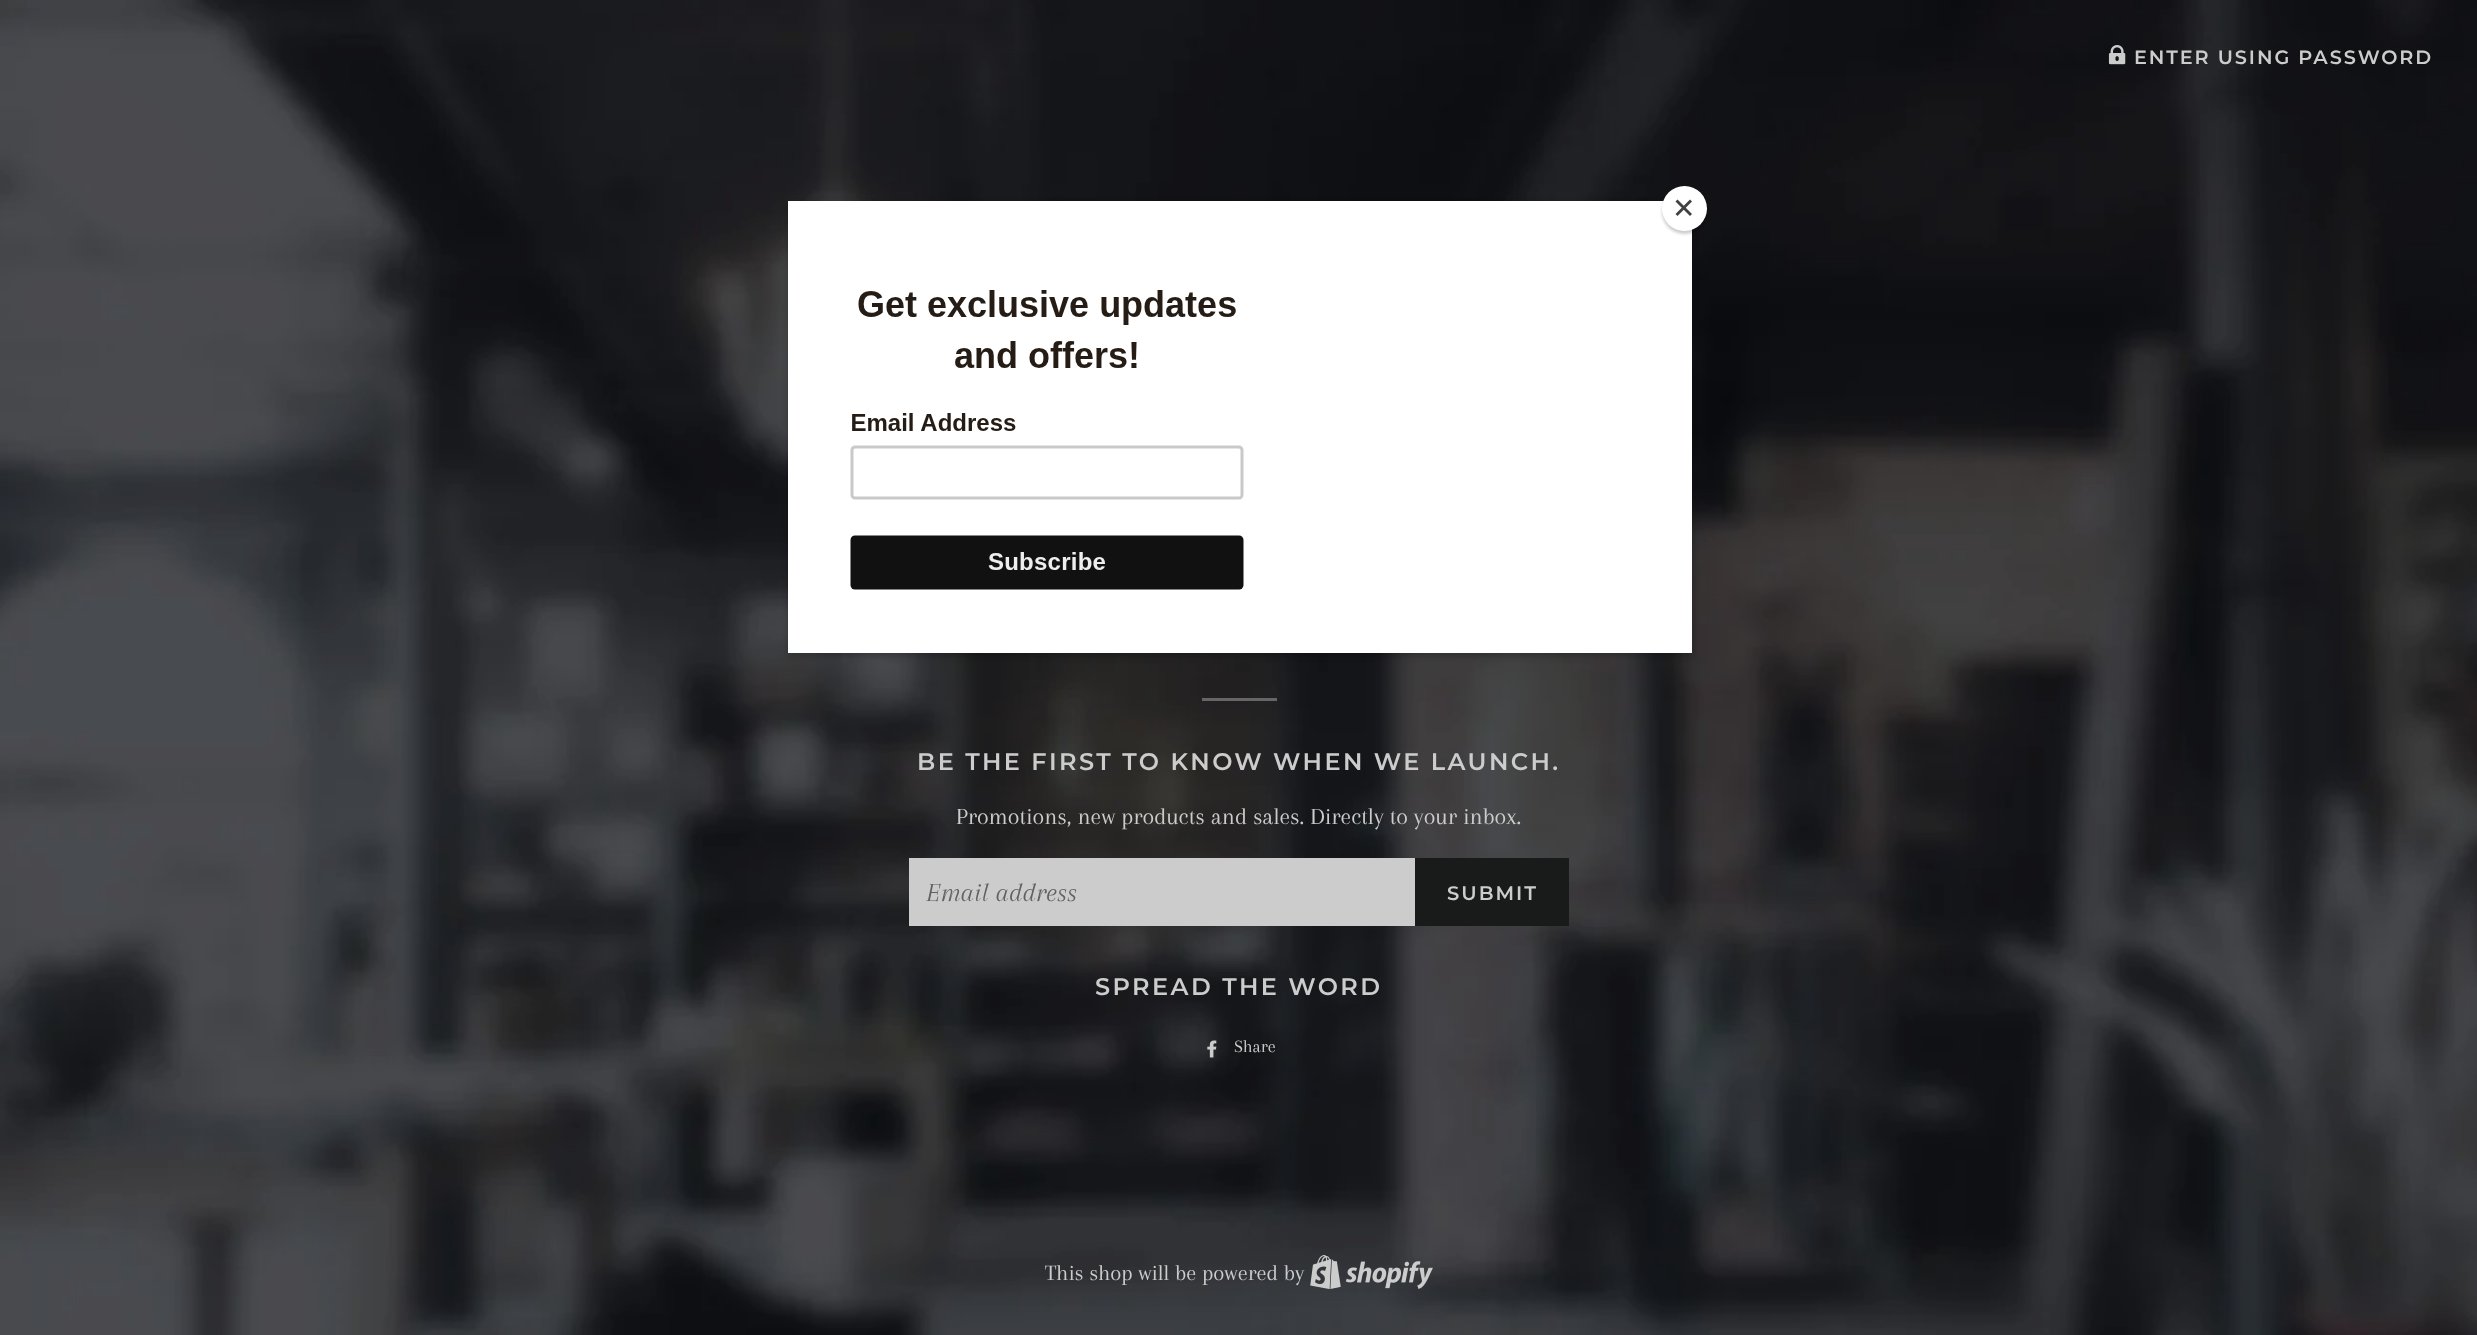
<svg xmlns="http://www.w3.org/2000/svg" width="2477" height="1335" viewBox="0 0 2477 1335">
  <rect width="100%" height="100%" fill="#fff"/>
  <image x="0" y="0" width="2477" height="1335" href="img/1.png"/>
  <image x="2108" y="45" width="18" height="20" href="img/2.png"/>
  <path d="M1202 698h75v3H1202z" fill="#666"/>
  <path d="M909 858h506v68H909z" fill="#ccc"/>
  <path d="M1415 858h154v68H1415z" fill="#191a1a"/>
  <image x="1207" y="1040" width="10" height="18" href="img/3.png"/>
  <image x="1310" y="1255" width="123" height="35" href="img/4.png"/>
  <path d="M788 204h904v452H788z" fill="#00000033" filter="blur(3px)"/>
  <image x="788" y="201" width="904" height="452" href="img/5.png"/>
  <rect x="1662" y="189" width="45" height="45" rx="22.5" fill="#00000033" filter="blur(1.5px)"/>
  <circle cx="1684.5" cy="208.5" r="22.5" fill="#fff"/>
  <path d="M1690 199.5L1692 201.5L1677.5 216L1675.5 214Z" fill="#414141"/>
  <path d="M1675.5 201.5L1677.5 199.5L1692 214L1690 216Z" fill="#414141"/>
  <text x="2134" y="64" font-family="Montserrat" font-size="19.25" font-weight="600" letter-spacing="1.9" fill="#ccc">ENTER USING PASSWORD</text>
  <text x="917" y="770" font-family="Montserrat" font-size="24" font-weight="600" letter-spacing="2.4" fill="#ccc">BE THE FIRST TO KNOW WHEN WE LAUNCH.</text>
  <text x="956" y="824" font-family="Arapey" font-size="24" fill="#ccc">Promotions, new products and sales. Directly to your inbox.</text>
  <text x="926" y="901" font-family="Arapey" font-size="27" font-style="italic" fill="#616162">Email address</text>
  <text x="1447" y="900" font-family="Montserrat" font-size="19.5" font-weight="600" letter-spacing="2" fill="#ccc">SUBMIT</text>
  <text x="1095" y="995" font-family="Montserrat" font-size="24" font-weight="600" letter-spacing="2.4" fill="#ccc">SPREAD THE WORD</text>
  <text x="1234" y="1052" font-family="Arapey" font-size="18" fill="#ccc">Share</text>
  <text x="1045" y="1280" font-family="Arapey" font-size="22.75" fill="#ccc">This shop will be powered by</text>
</svg>
